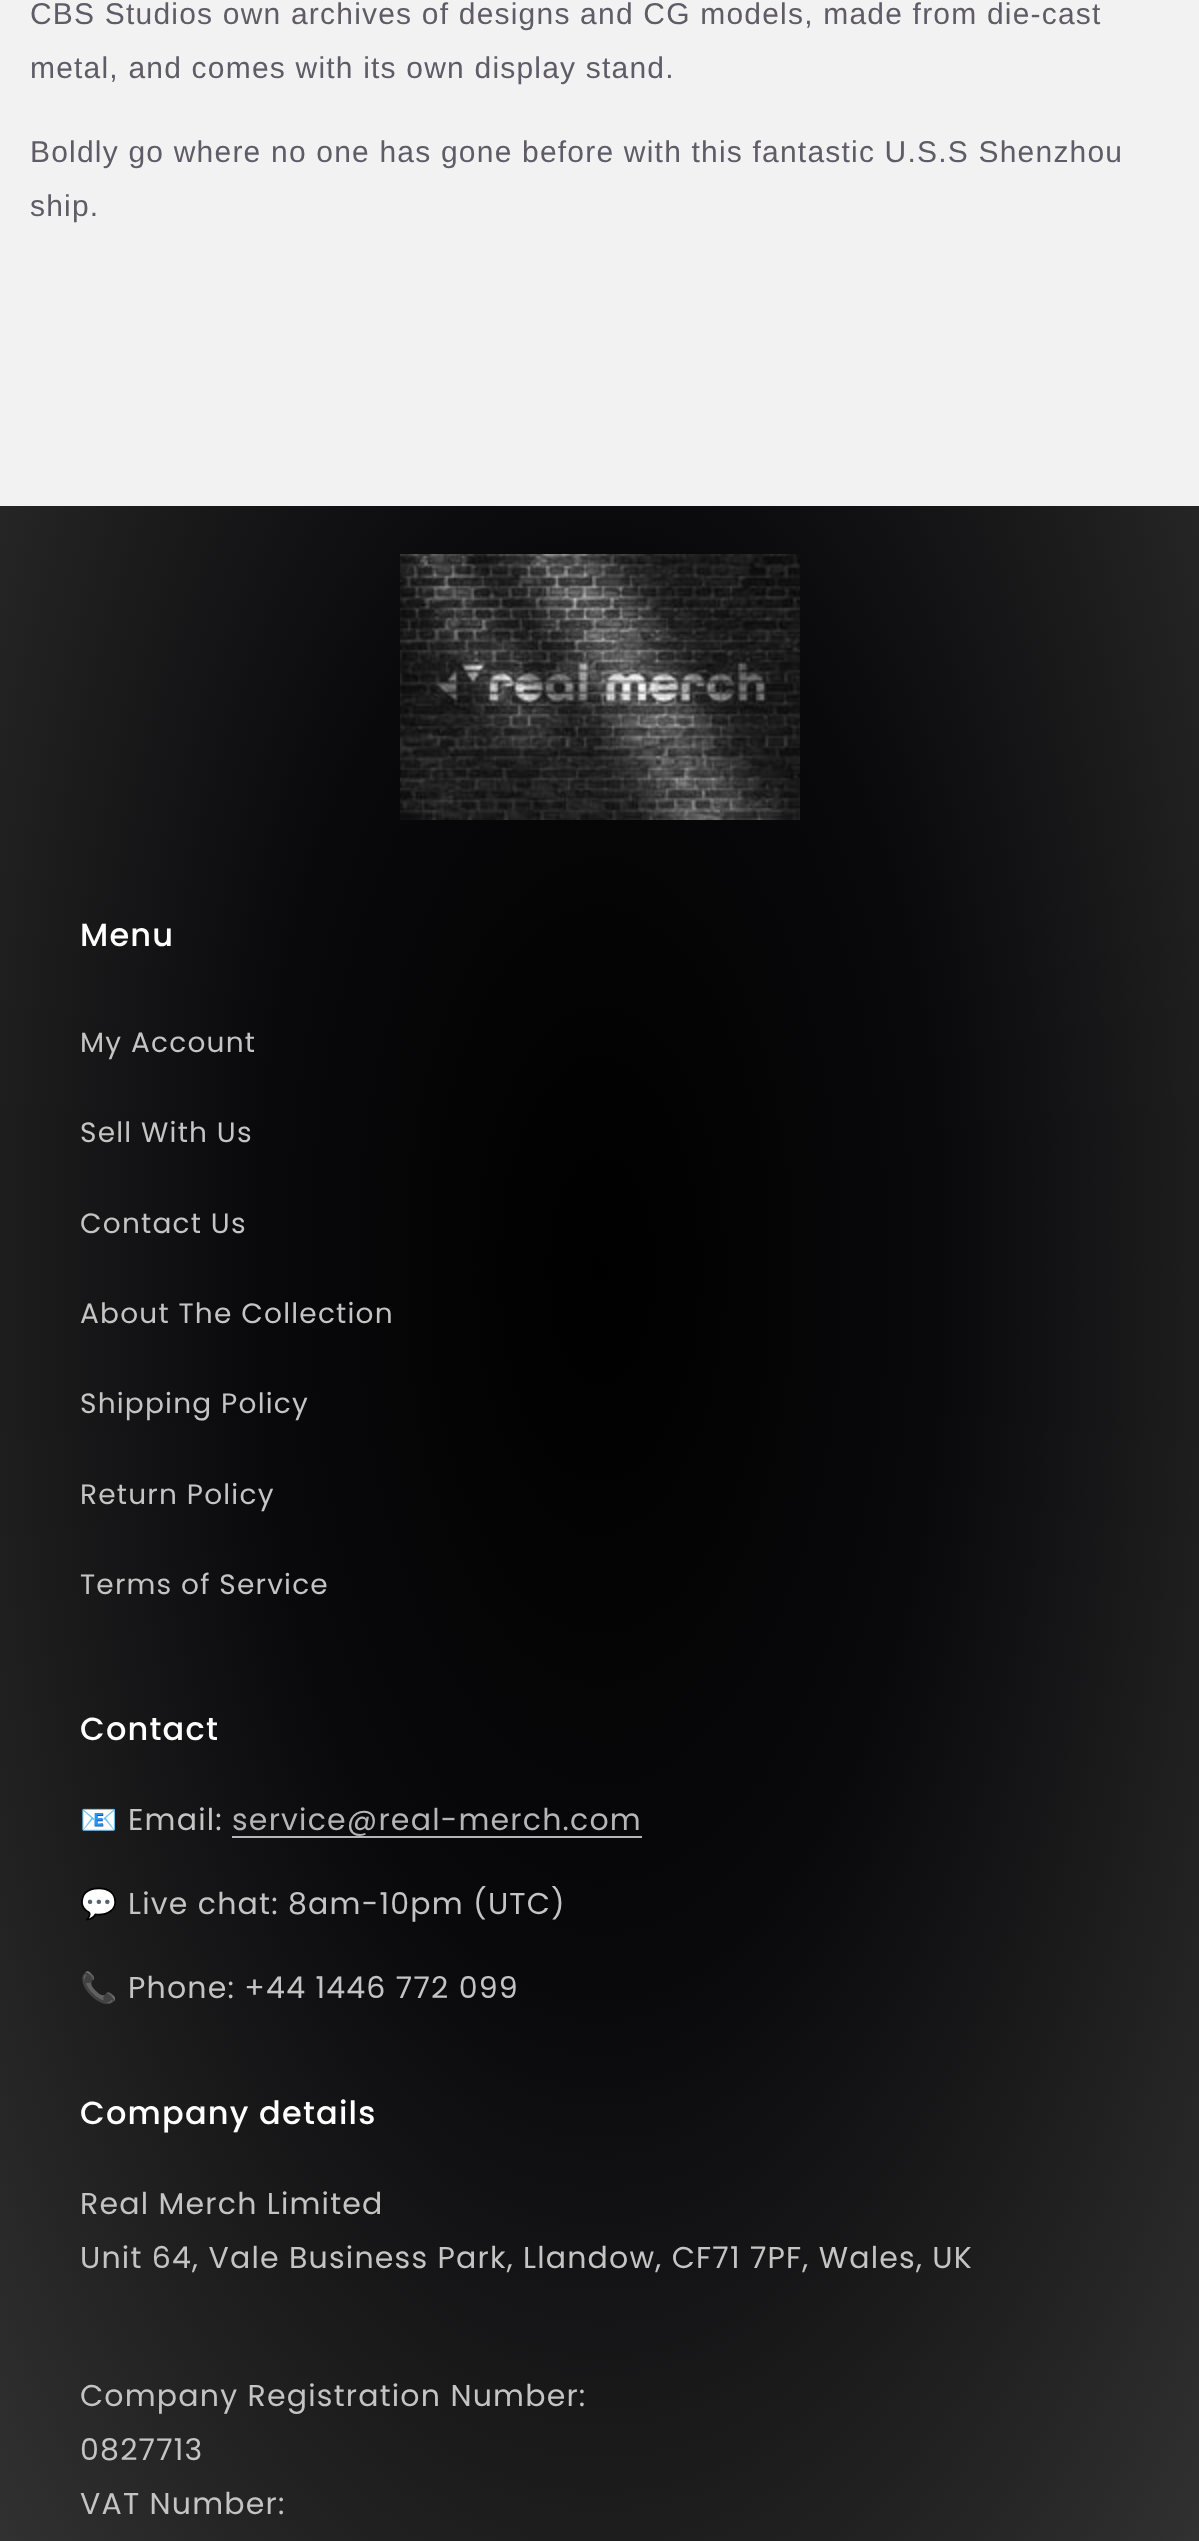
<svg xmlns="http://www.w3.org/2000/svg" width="1199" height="2541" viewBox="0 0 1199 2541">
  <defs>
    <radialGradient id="g1" gradientUnits="userSpaceOnUse" cx="0" cy="0" r="1" gradientTransform="matrix(849 0 0 1797 600 1271)"><stop offset="0" stop-color="#000"/><stop offset="0.4" stop-color="#09090b"/><stop offset="1" stop-color="#313131"/></radialGradient>
    <radialGradient id="g2" gradientUnits="userSpaceOnUse" cx="0" cy="0" r="1" gradientTransform="matrix(849 0 0 1797 600 1271)"><stop offset="0" stop-color="#b3b3b3"/><stop offset="0.4" stop-color="#b5b5b6"/><stop offset="1" stop-color="#c1c1c1"/></radialGradient>
  </defs>
  <rect width="100%" height="100%" fill="#f2f2f2"/>
  <path d="M0 506h1199v2035H0z" fill="url(#g1)"/>
  <path d="M232 1836h410v2H232z" fill="url(#g2)"/>
  <image x="400" y="554" width="400" height="266" href="img/1.png"/>
  <g font-family="Liberation Sans" font-size="30" letter-spacing="1.2" fill="#5f5c67">
    <text x="30" y="24">CBS Studios own archives of designs and CG models, made from die-cast</text>
    <text x="30" y="78">metal, and comes with its own display stand.</text>
    <text x="30" y="162">Boldly go where no one has gone before with this fantastic U.S.S Shenzhou</text>
    <text x="30" y="216">ship.</text>
  </g>
  <text x="80" y="946" font-family="Poppins" font-size="32" font-weight="500" letter-spacing="1.2" fill="#fff">Menu</text>
  <g font-family="Poppins" font-size="28" letter-spacing="1.2" fill="#c4c4c4">
    <text x="80" y="1052">My Account</text>
    <text x="80" y="1142">Sell With Us</text>
    <text x="80" y="1233">Contact Us</text>
    <text x="80" y="1323">About The Collection</text>
    <text x="80" y="1413">Shipping Policy</text>
    <text x="80" y="1504">Return Policy</text>
    <text x="80" y="1594">Terms of Service</text>
  </g>
  <text x="80" y="1740" font-family="Poppins" font-size="32" font-weight="500" letter-spacing="1.2" fill="#fff">Contact</text>
  <text x="80" y="1830" font-family="Noto Color Emoji" font-size="30" letter-spacing="1.2" fill="#c4c4c4">📧</text>
  <text x="128" y="1830" font-family="Poppins" font-size="30" letter-spacing="1.2" fill="#c4c4c4">Email:</text>
  <text x="232" y="1830" font-family="Poppins" font-size="30" letter-spacing="1.2" fill="#b5b5b6">service@real-merch.com</text>
  <text x="80" y="1914" font-family="Noto Color Emoji" font-size="30" letter-spacing="1.2" fill="#c4c4c4">💬</text>
  <text x="128" y="1914" font-family="Poppins" font-size="30" letter-spacing="1.2" fill="#c4c4c4">Live chat: 8am-10pm (UTC)</text>
  <text x="80" y="1998" font-family="Noto Color Emoji" font-size="30" letter-spacing="1.2" fill="#c4c4c4">📞</text>
  <text x="128" y="1998" font-family="Poppins" font-size="30" letter-spacing="1.2" fill="#c4c4c4">Phone: +44 1446 772 099</text>
  <text x="80" y="2124" font-family="Poppins" font-size="32" font-weight="500" letter-spacing="1.2" fill="#fff">Company details</text>
  <g font-family="Poppins" font-size="30" letter-spacing="1.2" fill="#c4c4c4">
    <text x="80" y="2214">Real Merch Limited</text>
    <text x="80" y="2268">Unit 64, Vale Business Park, Llandow, CF71 7PF, Wales, UK</text>
    <text x="80" y="2406">Company Registration Number:</text>
    <text x="80" y="2460">0827713</text>
    <text x="80" y="2514">VAT Number:</text>
  </g>
</svg>
